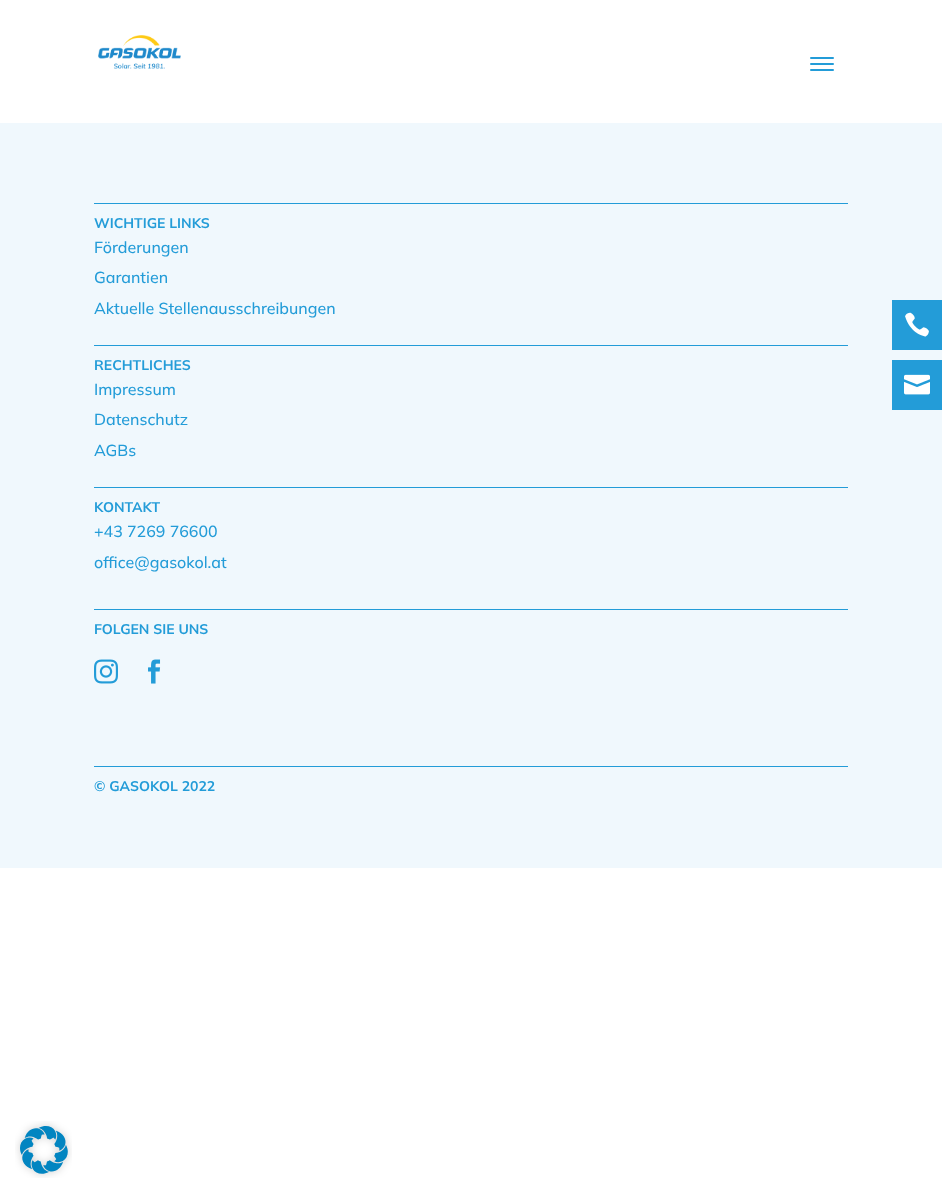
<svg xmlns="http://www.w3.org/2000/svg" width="942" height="1194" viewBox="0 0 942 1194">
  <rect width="100%" height="100%" fill="#fff"/>
  <image x="98" y="35" width="83" height="34" href="img/1.png"/>
  <rect x="810" y="57" width="24" height="2" rx="1" fill="#239cd8"/>
  <rect x="810" y="63" width="24" height="2" rx="1" fill="#239cd8"/>
  <rect x="810" y="69" width="24" height="2" rx="1" fill="#239cd8"/>
  <path d="M0 123h942v745H0z" fill="#f0f8fd"/>
  <path d="M94 203h754v1H94z" fill="#239cd8"/>
  <path d="M94 345h754v1H94z" fill="#239cd8"/>
  <path d="M94 487h754v1H94z" fill="#239cd8"/>
  <path d="M94 609h754v1H94z" fill="#239cd8"/>
  <image x="94" y="659" width="24" height="25" href="img/2.png"/>
  <image x="148" y="659" width="13" height="25" href="img/3.png"/>
  <path d="M94 766h754v1H94z" fill="#239cd8"/>
  <path d="M892 300h50v50H892z" fill="#239cd8"/>
  <image x="905" y="312" width="24" height="25" href="img/4.png"/>
  <path d="M892 360h50v50H892z" fill="#239cd8"/>
  <image x="904" y="374" width="26" height="21" href="img/5.png"/>
  <image x="15" y="1121" width="57" height="57" href="img/6.png"/>
  <text x="94" y="228" font-family="Mulish" font-size="14" font-weight="bold" fill="#239cd8">WICHTIGE LINKS</text>
  <g font-family="Mulish" font-size="16" font-weight="500" fill="#239cd8">
    <text x="94" y="253">Förderungen</text>
    <text x="94" y="283">Garantien</text>
    <text x="94" y="314">Aktuelle Stellenausschreibungen</text>
  </g>
  <text x="94" y="370" font-family="Mulish" font-size="14" font-weight="bold" fill="#239cd8">RECHTLICHES</text>
  <g font-family="Mulish" font-size="16" font-weight="500" fill="#239cd8">
    <text x="94" y="395">Impressum</text>
    <text x="94" y="425">Datenschutz</text>
    <text x="94" y="456">AGBs</text>
  </g>
  <text x="94" y="512" font-family="Mulish" font-size="14" font-weight="bold" fill="#239cd8">KONTAKT</text>
  <g font-family="Mulish" font-size="16" font-weight="500" fill="#239cd8">
    <text x="94" y="537">+43 7269 76600</text>
    <text x="94" y="568">office@gasokol.at</text>
  </g>
  <g font-family="Mulish" font-size="14" font-weight="bold" fill="#239cd8">
    <text x="94" y="634">FOLGEN SIE UNS</text>
    <text x="94" y="791">© GASOKOL 2022</text>
  </g>
</svg>
